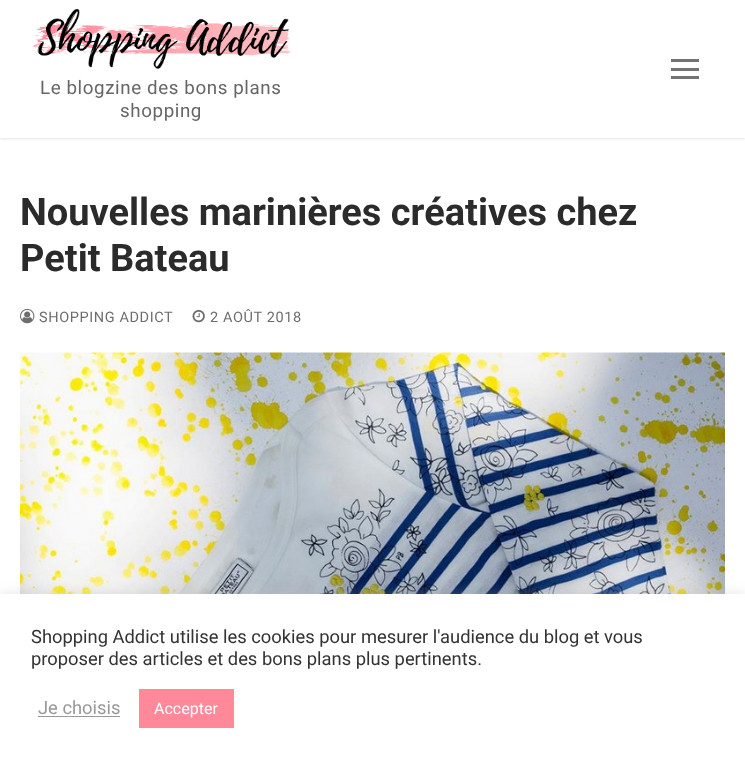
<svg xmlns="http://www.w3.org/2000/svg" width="745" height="765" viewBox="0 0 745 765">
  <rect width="100%" height="100%" fill="#fff"/>
  <path d="M0 1h745v138H0z" fill="#e1e5ea" filter="blur(1px)"/>
  <path d="M0 0h745v138H0z" fill="#fff"/>
  <path d="M671 68h28v3H671z" fill="#737373"/>
  <path d="M671 59h28v3H671z" fill="#737373"/>
  <path d="M671 76h28v3H671z" fill="#737373"/>
  <image x="32" y="9" width="259" height="60" href="img/1.png"/>
  <image x="20" y="308" width="15" height="16" href="img/2.png"/>
  <image x="192" y="309" width="13" height="14" href="img/3.png"/>
  <image x="20" y="352" width="705" height="242" href="img/4.png"/>
  <path d="M0 593h745v171H0z" fill="#acabab4d" filter="blur(6px)"/>
  <path d="M0 594h745v171H0z" fill="#fff"/>
  <path d="M38 716h82v1H38z" fill="#999"/>
  <path d="M139 689h95v39H139z" fill="#f89"/>
  <g font-family="Roboto" font-size="18.75" letter-spacing="0.6" fill="#666">
    <text x="40" y="94">Le blogzine des bons plans</text>
    <text x="120" y="117">shopping</text>
  </g>
  <g font-family="Roboto" font-size="38" font-weight="bold" fill="#2b2b2b">
    <text x="20" y="225">Nouvelles marinières créatives chez</text>
    <text x="20" y="271">Petit Bateau</text>
  </g>
  <g font-family="Roboto" font-size="14.5" letter-spacing="0.6" fill="#6d6d6d">
    <text x="39" y="322">SHOPPING ADDICT</text>
    <text x="210" y="322">2 AOÛT 2018</text>
  </g>
  <g font-family="Roboto" font-size="18.35" fill="#333">
    <text x="31" y="643">Shopping Addict utilise les cookies pour mesurer l'audience du blog et vous</text>
    <text x="31" y="665">proposer des articles et des bons plans plus pertinents.</text>
  </g>
  <text x="38" y="714" font-family="Roboto" font-size="18.35" fill="#999">Je choisis</text>
  <text x="154" y="714" font-family="Roboto" font-size="16" fill="#fff">Accepter</text>
</svg>
